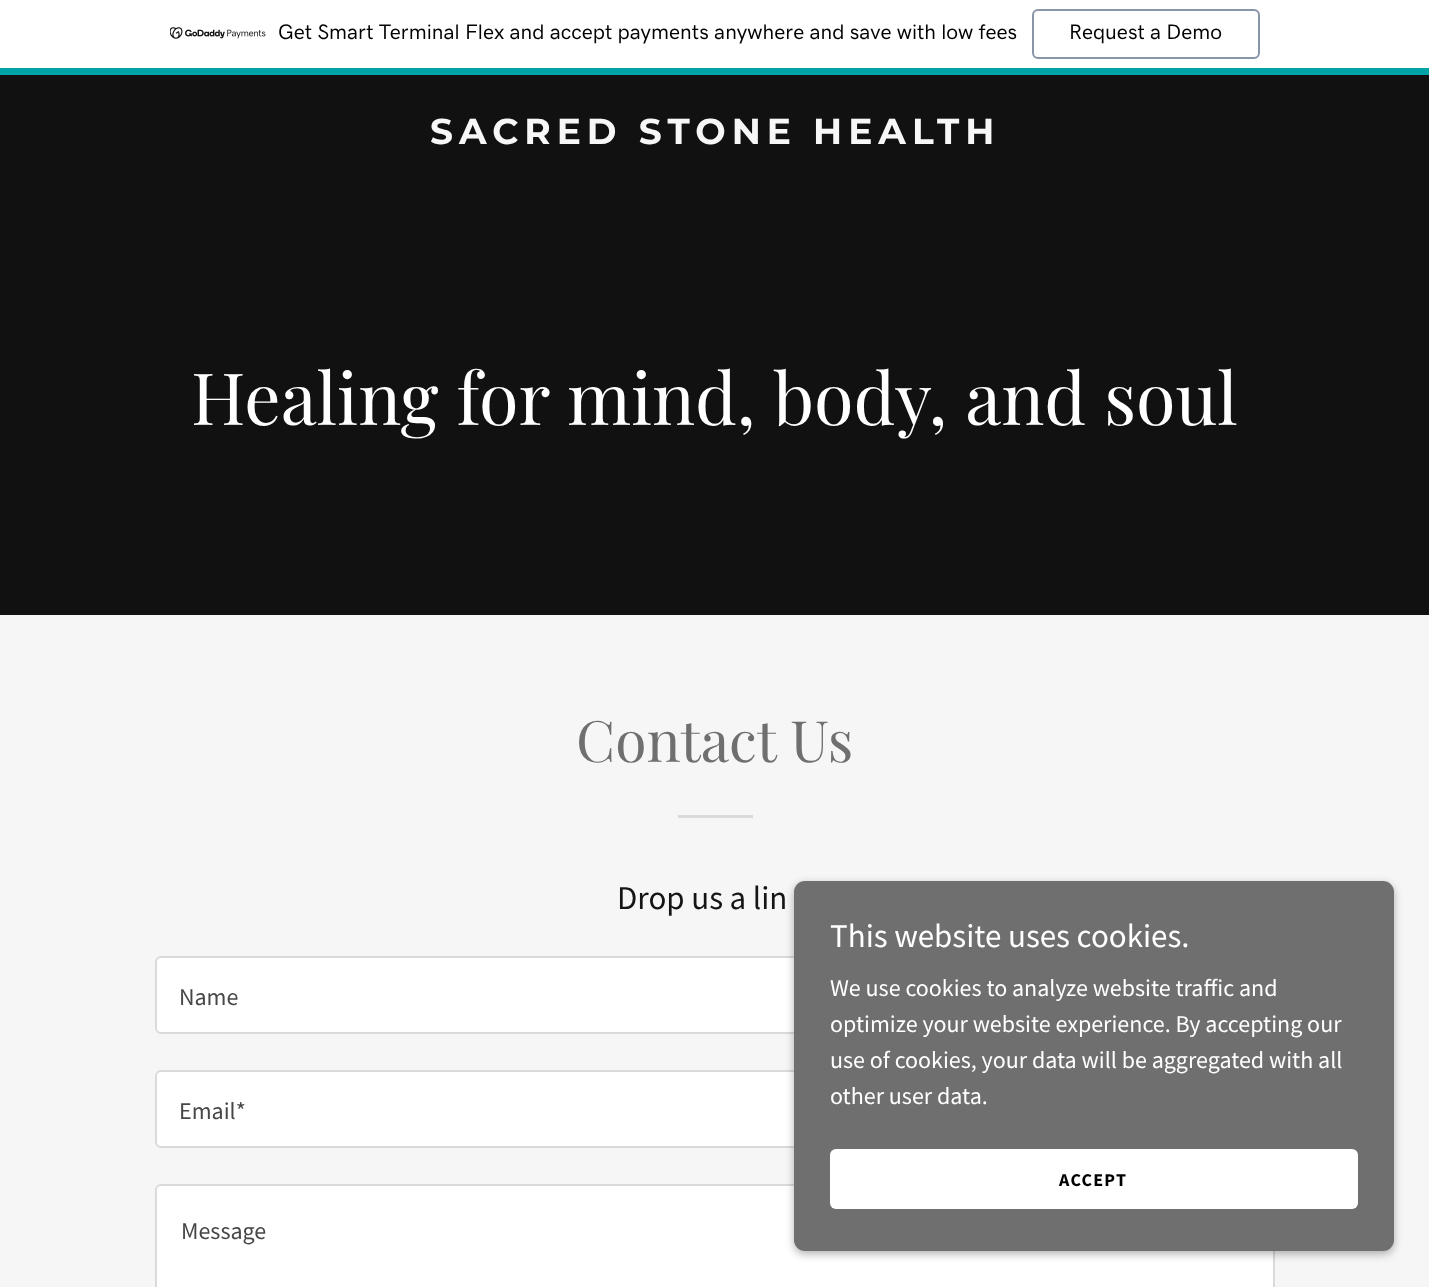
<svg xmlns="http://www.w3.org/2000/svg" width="1429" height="1287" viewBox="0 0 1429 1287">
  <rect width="100%" height="100%" fill="#f6f6f6"/>
  <path d="M0 0h1429v68H0z" fill="#fff"/>
  <path d="M0 68h1429v7H0z" fill="#00a4a6"/>
  <image x="170" y="27" width="96" height="12" href="img/1.png"/>
  <rect x="1033" y="10" width="226" height="48" rx="5" fill="none" stroke="#8995a9" stroke-width="2"/>
  <path d="M0 75h1429v540H0z" fill="#111"/>
  <path d="M678 815h75v3H678z" fill="#dadada"/>
  <rect x="156" y="957" width="1118" height="76" rx="5" fill="#fff" stroke="#dadada" stroke-width="2"/>
  <rect x="156" y="1071" width="1118" height="76" rx="5" fill="#fff" stroke="#dadada" stroke-width="2"/>
  <rect x="156" y="1185" width="1118" height="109" rx="5" fill="#fff" stroke="#dadada" stroke-width="2"/>
  <rect x="794" y="884" width="600" height="370" rx="11" fill="#0000004d" filter="blur(4.5px)"/>
  <rect x="794" y="881" width="600" height="370" rx="11" fill="#6f6f6f"/>
  <rect x="830" y="1149" width="528" height="60" rx="6" fill="#fff"/>
  <g font-family="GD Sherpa" font-size="21" font-weight="500" fill="#000">
    <text x="278" y="39">Get Smart Terminal Flex and accept payments anywhere and save with low fees</text>
    <text x="1069" y="39">Request a Demo</text>
  </g>
  <text x="430" y="144" font-family="Montserrat" font-size="36" font-weight="bold" letter-spacing="6" fill="#f7f7f7">SACRED STONE HEALTH</text>
  <text x="191" y="425" font-family="Playfair Display" font-size="72" fill="#fff">Healing for mind, body, and soul</text>
  <text x="576" y="762" font-family="Playfair Display" font-size="57" fill="#6f6f6f">Contact Us</text>
  <text x="617" y="909" font-family="Source Sans Pro" font-size="33" fill="#151515">Drop us a lin</text>
  <g font-family="Source Sans Pro" font-size="24" fill="#474747">
    <text x="179" y="1005">Name</text>
    <text x="179" y="1119">Email*</text>
    <text x="181" y="1239">Message</text>
  </g>
  <text x="830" y="947" font-family="Source Sans Pro" font-size="33" fill="#fff">This website uses cookies.</text>
  <g font-family="Source Sans Pro" font-size="24" fill="#fff">
    <text x="830" y="996">We use cookies to analyze website traffic and</text>
    <text x="830" y="1032">optimize your website experience. By accepting our</text>
    <text x="830" y="1068">use of cookies, your data will be aggregated with all</text>
    <text x="830" y="1104">other user data.</text>
  </g>
  <text x="1059" y="1186" font-family="Source Sans Pro" font-size="18" font-weight="bold" letter-spacing="1.25" fill="#000">ACCEPT</text>
</svg>
